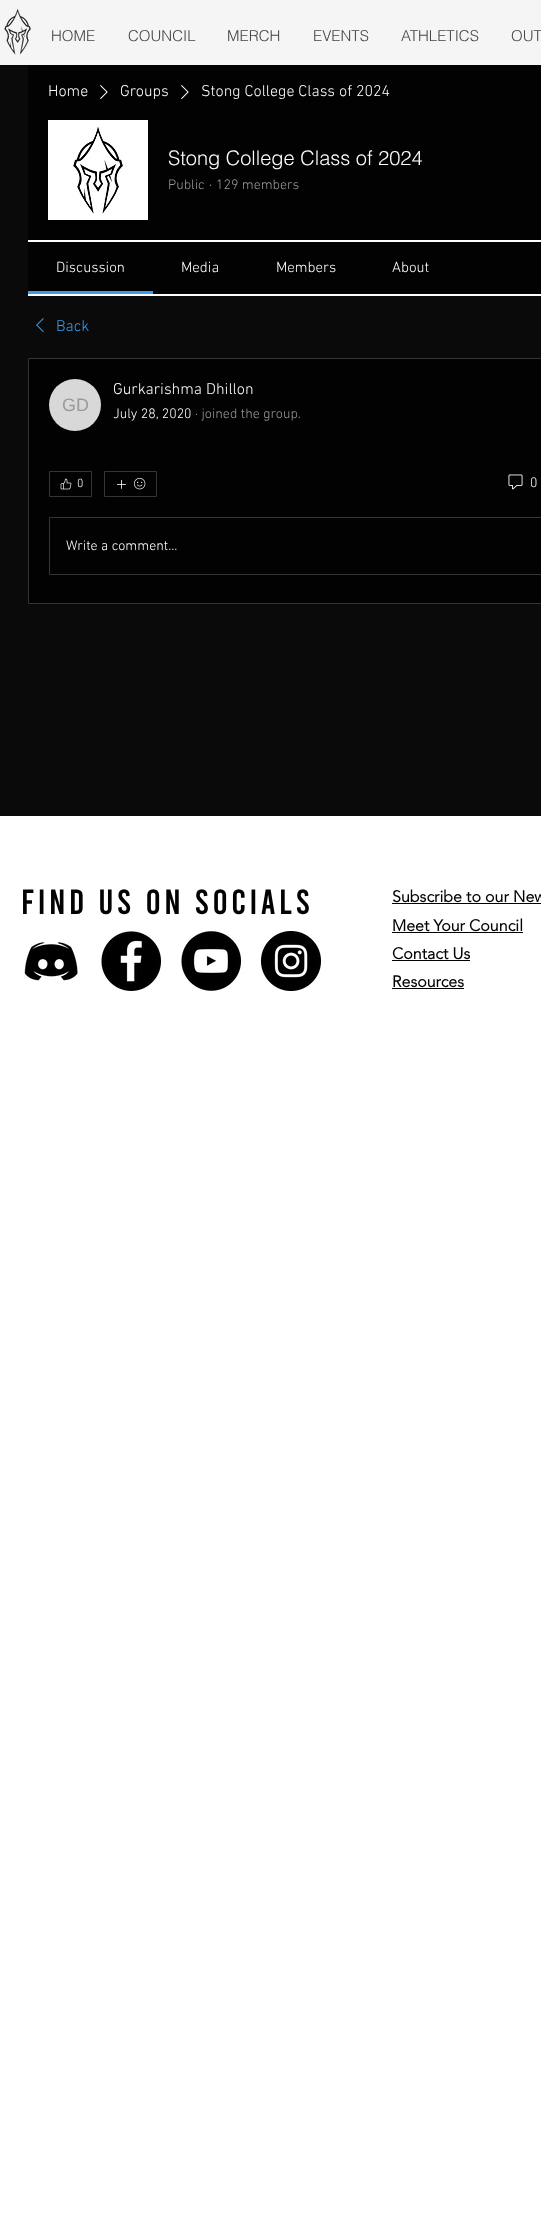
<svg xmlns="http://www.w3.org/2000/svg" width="541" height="2237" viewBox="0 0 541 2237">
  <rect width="100%" height="100%" fill="#fff"/>
  <path d="M0 0h541v65H0z" fill="#f5f5f5"/>
  <image x="4" y="8" width="27" height="47" href="img/1.png"/>
  <path d="M0 65h541v751H0z" fill="#0a0a0a"/>
  <path d="M28 65h513v229H28z" fill="#020202"/>
  <image x="100" y="85" width="8" height="14" href="img/2.png"/>
  <image x="181" y="85" width="8" height="14" href="img/2.png"/>
  <image x="48" y="120" width="100" height="100" href="img/3.png"/>
  <path d="M28 240h513v2H28z" fill="#fff"/>
  <path d="M28 294h513v2H28z" fill="#fff"/>
  <path d="M28 291h125v3H28z" fill="#3d9be9"/>
  <image x="36" y="318" width="8" height="14" href="img/4.png"/>
  <path d="M28.5 358.5h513v245H28.5z" fill="#020202" stroke="#353535"/>
  <circle cx="75" cy="405" r="26" fill="#d8d8d8"/>
  <path d="M49.5 471.5h42v25H49.5z" fill="none" stroke="#353535"/>
  <image x="60" y="478" width="12" height="12" href="img/5.png"/>
  <path d="M104.5 471.5h52v25H104.5z" fill="none" stroke="#353535"/>
  <image x="117" y="480" width="9" height="9" href="img/6.png"/>
  <image x="134" y="478" width="12" height="12" href="img/7.png"/>
  <image x="508" y="474" width="15" height="16" href="img/8.png"/>
  <path d="M49.5 517.5h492v57H49.5z" fill="none" stroke="#353535"/>
  <path d="M392 903h149v1H392z" fill="#020202"/>
  <path d="M392 932h131v1H392z" fill="#020202"/>
  <path d="M392 960h78v1H392z" fill="#020202"/>
  <path d="M392 988h72v1H392z" fill="#020202"/>
  <image x="24" y="942" width="54" height="39" href="img/9.png"/>
  <image x="101" y="931" width="60" height="60" href="img/10.png"/>
  <image x="181" y="931" width="60" height="60" href="img/11.png"/>
  <image x="261" y="931" width="60" height="60" href="img/12.png"/>
  <g font-family="helvetica" font-size="15" font-weight="300" fill="#444">
    <text x="51" y="41">HOME</text>
    <text x="128" y="41">COUNCIL</text>
    <text x="227" y="41">MERCH</text>
    <text x="313" y="41">EVENTS</text>
    <text x="401" y="41">ATHLETICS</text>
    <text x="511" y="41">OUT</text>
  </g>
  <g font-family="'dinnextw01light'" font-size="16" font-weight="300" fill="#fff">
    <text x="48" y="96">Home</text>
    <text x="120" y="96">Groups</text>
    <text x="201" y="96">Stong College Class of 2024</text>
  </g>
  <text x="168" y="165" font-family="helvetica" font-size="20" font-weight="300" fill="#fff">Stong College Class of 2024</text>
  <g font-family="'dinnextw01light'" font-size="14" font-weight="300" fill="#9a9a9a">
    <text x="168" y="189">Public</text>
    <text x="209" y="189">·</text>
    <text x="216" y="189">129 members</text>
  </g>
  <g font-family="'dinnextw01light'" font-size="15" font-weight="300" fill="#fff">
    <text x="56" y="272">Discussion</text>
    <text x="181" y="272">Media</text>
    <text x="276" y="272">Members</text>
    <text x="392" y="272">About</text>
  </g>
  <text x="56" y="331" font-family="'dinnextw01light'" font-size="16" font-weight="300" fill="#3d9be9">Back</text>
  <text x="62" y="411" font-family="Liberation Sans" font-size="18" fill="#9a9a9a">GD</text>
  <text x="113" y="394" font-family="'dinnextw01light'" font-size="16" font-weight="300" fill="#fff">Gurkarishma Dhillon</text>
  <text x="113" y="418" font-family="'dinnextw01light'" font-size="14" font-weight="300" fill="#fff">July 28, 2020</text>
  <text x="195" y="418" font-family="'dinnextw01light'" font-size="14" font-weight="300" fill="#9a9a9a">· joined the group.</text>
  <text x="77" y="487" font-family="'dinnextw01light'" font-size="12" font-weight="300" fill="#fff">0</text>
  <g font-family="'dinnextw01light'" font-size="14" font-weight="300" fill="#fff">
    <text x="530" y="487">0</text>
    <text x="66" y="550">Write a comment...</text>
  </g>
  <text x="21" y="914" font-family="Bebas" font-size="35" letter-spacing="3.5" fill="#020202">Find us on socials</text>
  <g font-family="'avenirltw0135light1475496'" font-size="16" font-weight="bold" fill="#020202">
    <text x="392" y="902">Subscribe to our New</text>
    <text x="392" y="931">Meet Your Council</text>
    <text x="392" y="959">Contact Us</text>
    <text x="392" y="987">Resources</text>
  </g>
</svg>
